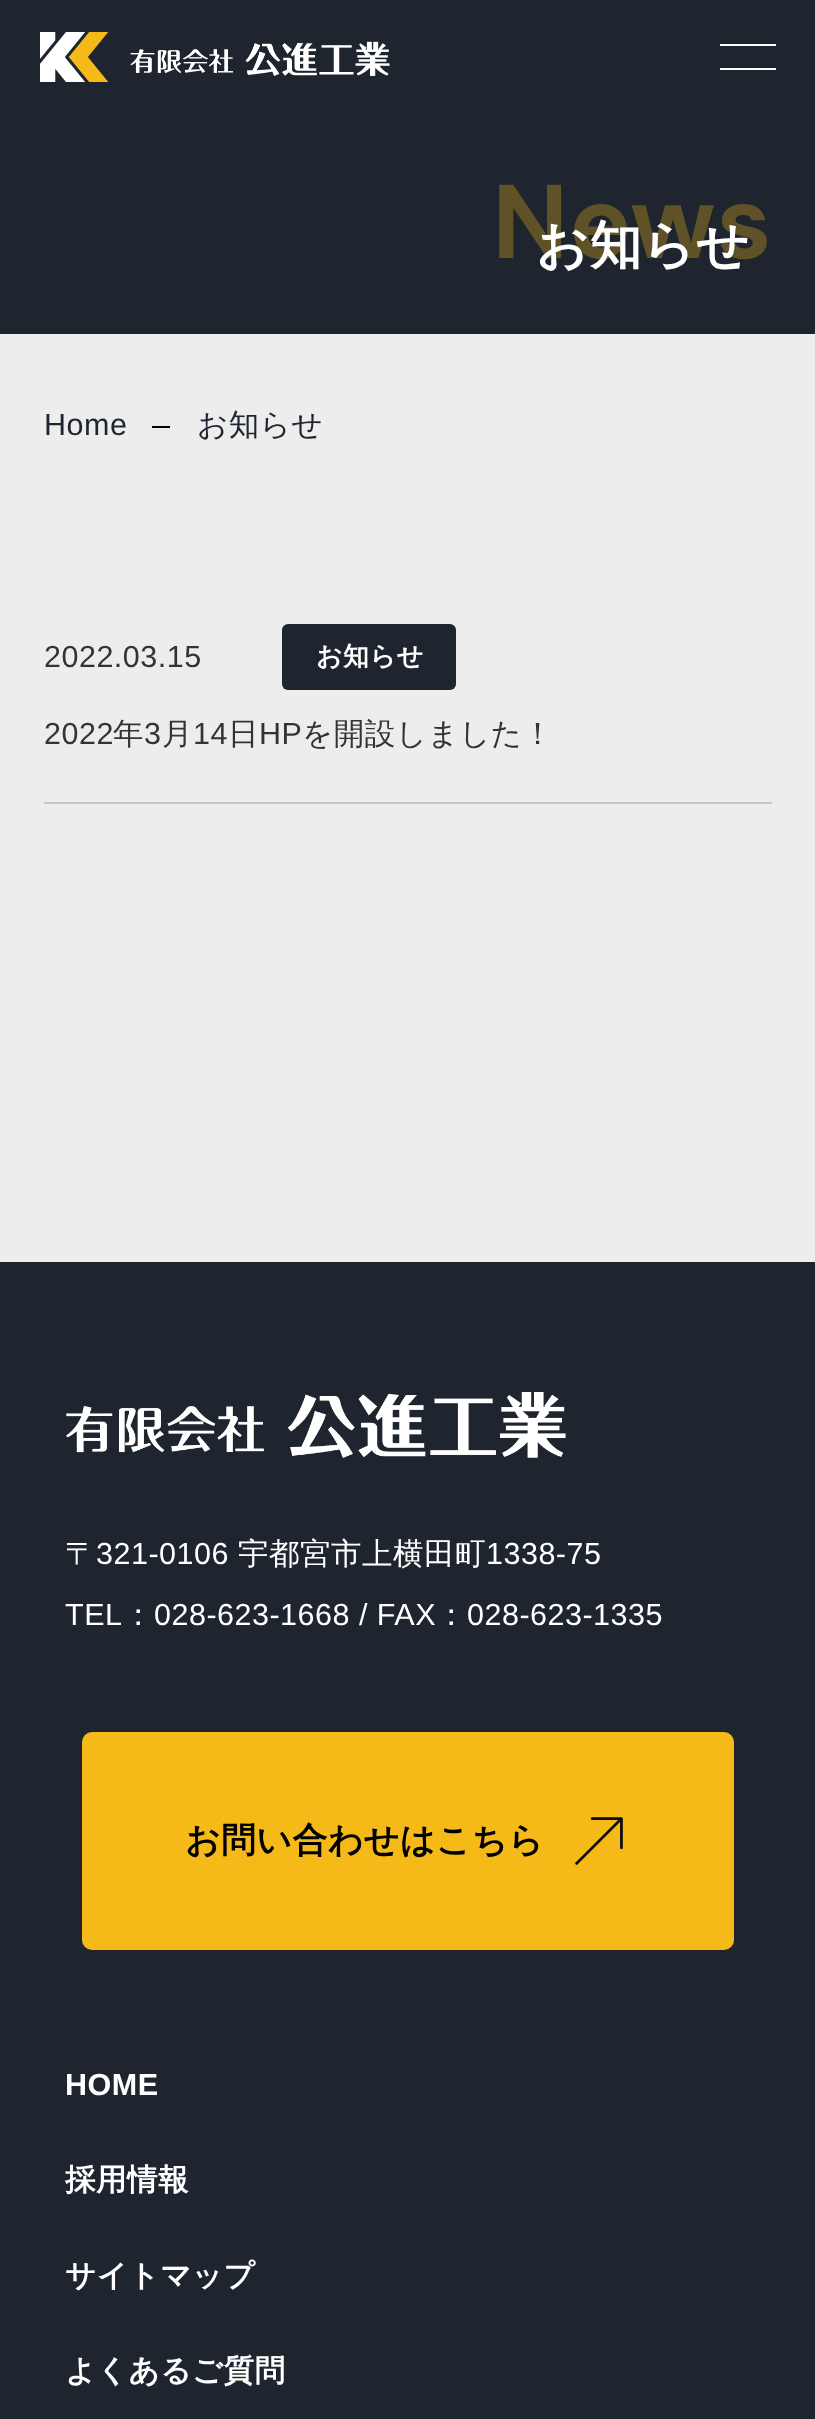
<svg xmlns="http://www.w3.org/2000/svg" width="815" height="2419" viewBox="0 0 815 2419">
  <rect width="100%" height="100%" fill="#1e252e"/>
  <image x="40" y="32" width="350" height="50" href="img/1.png"/>
  <path d="M720 44h56v2H720z" fill="#fff"/>
  <path d="M720 68h56v2H720z" fill="#fff"/>
  <path d="M0 334h815v928H0z" fill="#ededed"/>
  <path d="M152 426h18v2H152z" fill="#000"/>
  <path d="M44 802h728v2H44z" fill="#c6c6c6"/>
  <rect x="282" y="624" width="174" height="66" rx="6" fill="#1e252e"/>
  <image x="66" y="1392" width="500" height="66" href="img/2.png"/>
  <rect x="82" y="1732" width="652" height="218" rx="10" fill="#f5ba18"/>
  <image x="575" y="1817" width="48" height="48" href="img/3.png"/>
  <text x="492" y="258" font-family="DM Sans" font-size="104.5" font-weight="bold" letter-spacing="0.5" fill="#5f5227">News</text>
  <text x="536" y="263" font-family="WenQuanYi Zen Hei" font-size="52" font-weight="bold" letter-spacing="0.5" fill="#fff">お知らせ</text>
  <text x="44" y="435" font-family="Liberation Sans" font-size="30.5" letter-spacing="0.5" fill="#1e252e">Home</text>
  <text x="197" y="435" font-family="WenQuanYi Zen Hei" font-size="30.5" font-weight="500" letter-spacing="0.5" fill="#1e252e">お知らせ</text>
  <text x="44" y="667" font-family="Liberation Sans" font-size="30.5" letter-spacing="0.5" fill="#333">2022.03.15</text>
  <text x="316" y="665" font-family="WenQuanYi Zen Hei" font-size="26" font-weight="bold" letter-spacing="0.5" fill="#fff">お知らせ</text>
  <text x="44" y="744" font-family="Liberation Sans" font-size="30.5" letter-spacing="0.5" fill="#333">2022</text>
  <text x="113" y="744" font-family="WenQuanYi Zen Hei" font-size="30.5" font-weight="500" letter-spacing="0.5" fill="#333">年</text>
  <text x="144" y="744" font-family="Liberation Sans" font-size="30.5" letter-spacing="0.5" fill="#333">3</text>
  <text x="162" y="744" font-family="WenQuanYi Zen Hei" font-size="30.5" font-weight="500" letter-spacing="0.5" fill="#333">月</text>
  <text x="193" y="744" font-family="Liberation Sans" font-size="30.5" letter-spacing="0.5" fill="#333">14</text>
  <text x="228" y="744" font-family="WenQuanYi Zen Hei" font-size="30.5" font-weight="500" letter-spacing="0.5" fill="#333">日</text>
  <text x="259" y="744" font-family="Liberation Sans" font-size="30.5" letter-spacing="0.5" fill="#333">HP</text>
  <text x="302" y="744" font-family="WenQuanYi Zen Hei" font-size="30.5" font-weight="500" letter-spacing="0.5" fill="#333">を開設しました！</text>
  <text x="65" y="1564" font-family="WenQuanYi Zen Hei" font-size="30.5" font-weight="500" letter-spacing="0.5" fill="#fff">〒</text>
  <text x="96" y="1564" font-family="Liberation Sans" font-size="30.5" letter-spacing="0.5" fill="#fff">321-0106</text>
  <text x="238" y="1564" font-family="WenQuanYi Zen Hei" font-size="30.5" font-weight="500" letter-spacing="0.5" fill="#fff">宇都宮市上横田町</text>
  <g font-family="Liberation Sans" font-size="30.5" letter-spacing="0.5" fill="#fff">
    <text x="486" y="1564">1338-75</text>
    <text x="65" y="1625">TEL</text>
  </g>
  <text x="123" y="1625" font-family="WenQuanYi Zen Hei" font-size="30.5" font-weight="500" letter-spacing="0.5" fill="#fff">：</text>
  <text x="154" y="1625" font-family="Liberation Sans" font-size="30.5" letter-spacing="0.5" fill="#fff">028-623-1668 / FAX</text>
  <text x="436" y="1625" font-family="WenQuanYi Zen Hei" font-size="30.5" font-weight="500" letter-spacing="0.5" fill="#fff">：</text>
  <text x="467" y="1625" font-family="Liberation Sans" font-size="30.5" letter-spacing="0.5" fill="#fff">028-623-1335</text>
  <text x="185" y="1852" font-family="WenQuanYi Zen Hei" font-size="34.75" font-weight="bold" letter-spacing="0.5" fill="#000">お問い合わせはこちら</text>
  <text x="65" y="2095" font-family="Liberation Sans" font-size="30.5" font-weight="bold" letter-spacing="0.5" fill="#fff">HOME</text>
  <g font-family="WenQuanYi Zen Hei" font-size="30.5" font-weight="bold" letter-spacing="0.5" fill="#fff">
    <text x="65" y="2190">採用情報</text>
    <text x="65" y="2286">サイトマップ</text>
    <text x="65" y="2381">よくあるご質問</text>
  </g>
</svg>
